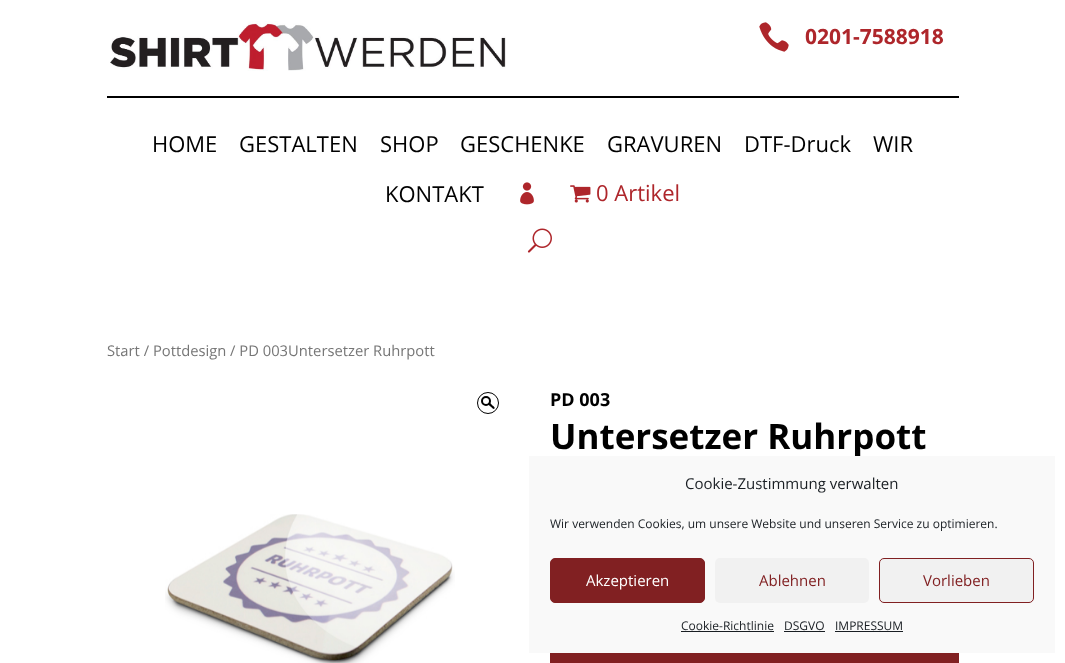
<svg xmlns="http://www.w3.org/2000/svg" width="1065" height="663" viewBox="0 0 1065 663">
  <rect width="100%" height="100%" fill="#fff"/>
  <path d="M107 96h852v2H107z" fill="#000"/>
  <image x="110" y="21" width="396" height="50" href="img/1.png"/>
  <image x="759" y="22" width="30" height="30" href="img/2.png"/>
  <image x="520" y="182" width="14" height="23" href="img/3.png"/>
  <image x="570" y="185" width="21" height="18" href="img/4.png"/>
  <image x="527" y="228" width="25" height="25" href="img/5.png"/>
  <circle cx="488" cy="403" r="10.5" fill="none" stroke="#000"/>
  <circle cx="486" cy="401" r="4" fill="none" stroke="#000" stroke-width="2"/>
  <path d="M488.5 403C490 402 491.5 404.5 492 405C493 406 495.5 407.5 494.5 408.5C493 410 491.5 407 490.5 406.5C490 406 487.5 404 488.5 403Z" fill="#000"/>
  <image x="165" y="514" width="290" height="149" href="img/6.png"/>
  <path d="M550 653h409v10H550z" fill="#812022"/>
  <text x="805" y="44" font-family="Open Sans" font-size="21" font-weight="bold" fill="#ae262b">0201-7588918</text>
  <g font-family="Open Sans" font-size="22" fill="#000">
    <text x="152" y="152">HOME</text>
    <text x="239" y="152">GESTALTEN</text>
    <text x="380" y="152">SHOP</text>
    <text x="460" y="152">GESCHENKE</text>
    <text x="607" y="152">GRAVUREN</text>
    <text x="744" y="152">DTF-Druck</text>
    <text x="873" y="152">WIR</text>
    <text x="385" y="202">KONTAKT</text>
  </g>
  <text x="596" y="201" font-family="Open Sans" font-size="22" fill="#ae262b">0 Artikel</text>
  <text x="107" y="356" font-family="Open Sans" font-size="14.75" fill="#767676">Start / Pottdesign / PD 003Untersetzer Ruhrpott</text>
  <text x="550" y="406" font-family="Open Sans" font-size="18" font-weight="bold" fill="#000">PD 003</text>
  <text x="550" y="449" font-family="Open Sans" font-size="35" font-weight="bold" fill="#000">Untersetzer Ruhrpott</text>
  <path d="M529 456h526v197H529z" fill="#f9f9f9"/>
  <text x="685" y="489" font-family="Open Sans" font-size="15" fill="#191e23">Cookie-Zustimmung verwalten</text>
  <text x="550" y="528" font-family="Open Sans" font-size="12" fill="#191e23">Wir verwenden Cookies, um unsere Website und unseren Service zu optimieren.</text>
  <rect x="550.5" y="558.5" width="154" height="44" rx="4.5" fill="#812022" stroke="#812022"/>
  <text x="586" y="586" font-family="Open Sans" font-size="15" fill="#fff">Akzeptieren</text>
  <rect x="715" y="558" width="154" height="45" rx="5" fill="#f1f1f1"/>
  <text x="759" y="586" font-family="Open Sans" font-size="15" fill="#812022">Ablehnen</text>
  <rect x="879.5" y="558.5" width="154" height="44" rx="4.5" fill="#f1f1f1" stroke="#812022"/>
  <text x="923" y="586" font-family="Open Sans" font-size="15" fill="#812022">Vorlieben</text>
  <text x="681" y="630" font-family="Open Sans" font-size="12" fill="#191e23">Cookie-Richtlinie</text>
  <path d="M681 631h93v1H681z" fill="#191e23"/>
  <text x="784" y="630" font-family="Open Sans" font-size="12" fill="#191e23">DSGVO</text>
  <path d="M784 631h41v1H784z" fill="#191e23"/>
  <text x="835" y="630" font-family="Open Sans" font-size="12" fill="#191e23">IMPRESSUM</text>
  <path d="M835 631h68v1H835z" fill="#191e23"/>
</svg>
